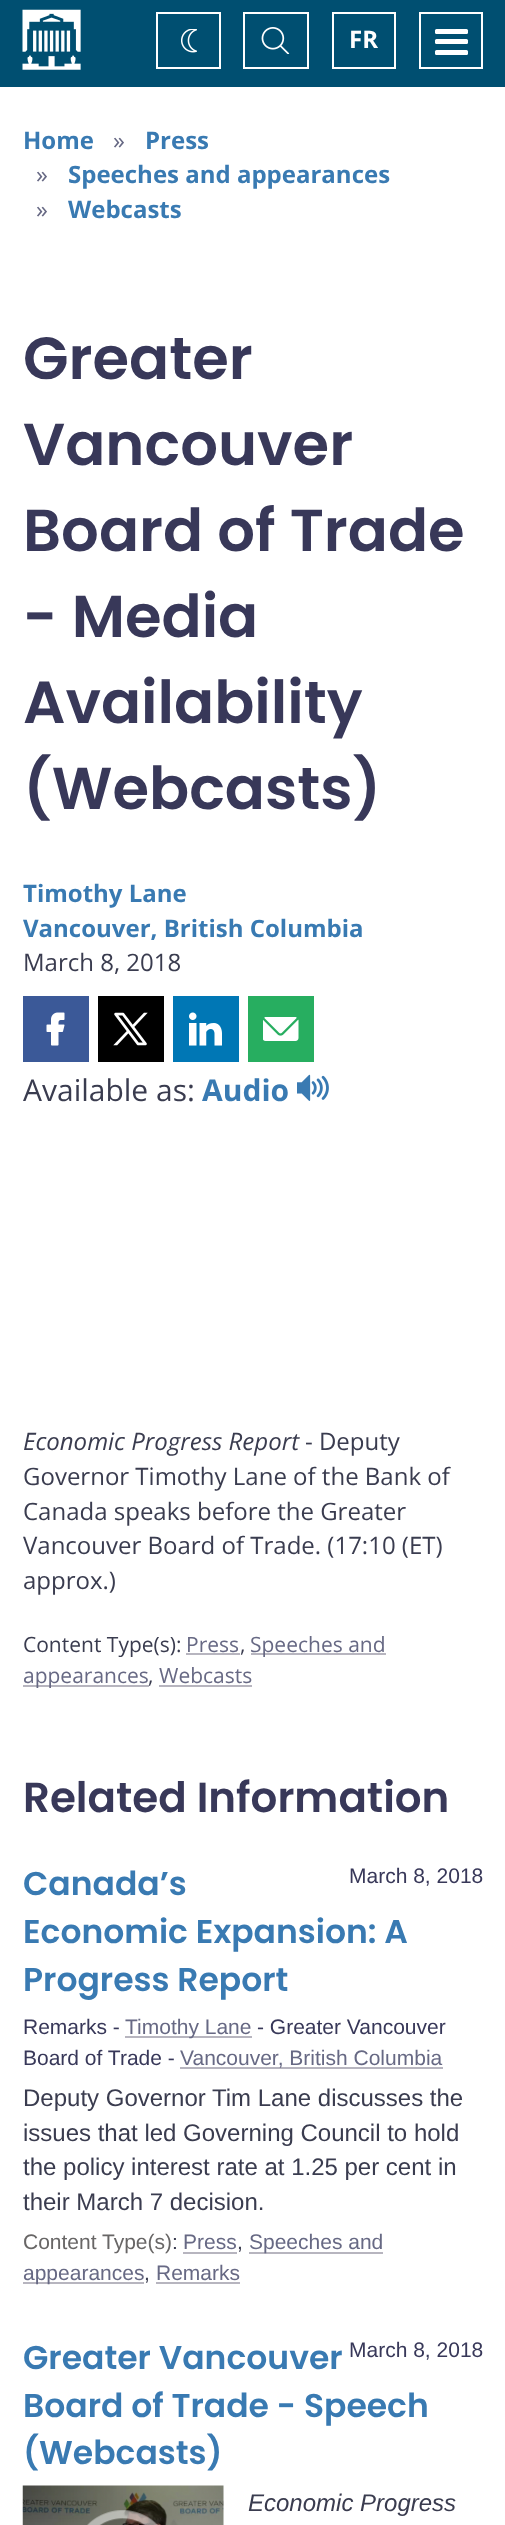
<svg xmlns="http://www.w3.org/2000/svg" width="505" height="2525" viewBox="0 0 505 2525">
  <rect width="100%" height="100%" fill="#fff"/>
  <path d="M0 0h505v87H0z" fill="#004f71"/>
  <image x="22" y="9" width="59" height="61" href="img/1.png"/>
  <path d="M157 13h63v55H157z" fill="none" stroke="#fff" stroke-width="2"/>
  <image x="181" y="29" width="16" height="24" href="img/2.png"/>
  <path d="M244 13h64v55H244z" fill="none" stroke="#fff" stroke-width="2"/>
  <image x="261" y="27" width="29" height="27" href="img/3.png"/>
  <path d="M333 13h62v55H333z" fill="none" stroke="#fff" stroke-width="2"/>
  <path d="M420 13h62v55H420z" fill="none" stroke="#fff" stroke-width="2"/>
  <rect x="435" y="29" width="33" height="5" rx="1.5" fill="#fff"/>
  <rect x="435" y="39" width="33" height="5" rx="1.5" fill="#fff"/>
  <rect x="435" y="50" width="33" height="5" rx="1.5" fill="#fff"/>
  <path d="M23 996h66v66H23z" fill="#3b5998"/>
  <image x="46" y="1012" width="19" height="34" href="img/4.png"/>
  <path d="M98 996h66v66H98z" fill="#000"/>
  <image x="113" y="1012" width="35" height="34" href="img/5.png"/>
  <path d="M173 996h66v66H173z" fill="#0077b5"/>
  <image x="189" y="1012" width="33" height="34" href="img/6.png"/>
  <path d="M248 996h66v66H248z" fill="#27ae60"/>
  <image x="263" y="1017" width="36" height="24" href="img/7.png"/>
  <image x="297" y="1074" width="32" height="27" href="img/8.png"/>
  <path d="M186 1653h54v2H186z" fill="#b7b5bf"/>
  <path d="M251 1653h135v2H251z" fill="#b7b5bf"/>
  <path d="M23 1685h126v2H23z" fill="#b7b5bf"/>
  <path d="M159 1685h93v2H159z" fill="#b7b5bf"/>
  <path d="M125 2036h127v2H125z" fill="#b7b5bf"/>
  <path d="M180 2067h263v2H180z" fill="#b7b5bf"/>
  <path d="M183 2252h54v2H183z" fill="#b7b5bf"/>
  <path d="M249 2252h134v2H249z" fill="#b7b5bf"/>
  <path d="M23 2282h121v2H23z" fill="#b7b5bf"/>
  <path d="M156 2282h84v2H156z" fill="#b7b5bf"/>
  <image x="22" y="2485" width="202" height="40" href="img/9.png"/>
  <image x="87" y="2510" width="72" height="15" href="img/10.png"/>
  <text x="349" y="48" font-family="Open Sans" font-size="24" font-weight="bold" fill="#fff">FR</text>
  <text x="23" y="149" font-family="Open Sans" font-size="24" font-weight="bold" fill="#397ab2">Home</text>
  <text x="113" y="149" font-family="Open Sans" font-size="24" fill="#676984">»</text>
  <text x="145" y="149" font-family="Open Sans" font-size="24" font-weight="bold" fill="#397ab2">Press</text>
  <text x="36" y="183" font-family="Open Sans" font-size="24" fill="#676984">»</text>
  <text x="68" y="183" font-family="Open Sans" font-size="24" font-weight="bold" fill="#397ab2">Speeches and appearances</text>
  <text x="36" y="218" font-family="Open Sans" font-size="24" fill="#676984">»</text>
  <text x="68" y="218" font-family="Open Sans" font-size="24" font-weight="bold" fill="#397ab2">Webcasts</text>
  <g font-family="Poppins" font-size="59.25" font-weight="600" fill="#383859">
    <text x="23" y="379">Greater</text>
    <text x="23" y="465">Vancouver</text>
    <text x="23" y="551">Board of Trade</text>
    <text x="23" y="637">- Media</text>
    <text x="23" y="723">Availability</text>
    <text x="23" y="809">(Webcasts)</text>
  </g>
  <g font-family="Open Sans" font-size="24" font-weight="bold" fill="#397ab2">
    <text x="23" y="902">Timothy Lane</text>
    <text x="23" y="937">Vancouver, British Columbia</text>
  </g>
  <text x="23" y="971" font-family="Open Sans" font-size="24" fill="#3a3c4f">March 8, 2018</text>
  <text x="23" y="1101" font-family="Open Sans" font-size="30" fill="#3a3c4f">Available as:</text>
  <text x="202" y="1101" font-family="Open Sans" font-size="30" font-weight="bold" fill="#397ab2">Audio</text>
  <text x="23" y="1450" font-family="Open Sans" font-size="24" font-style="italic" fill="#3a3c4f">Economic Progress Report</text>
  <g font-family="Open Sans" font-size="24" fill="#3a3c4f">
    <text x="305" y="1450">- Deputy</text>
    <text x="23" y="1485">Governor Timothy Lane of the Bank of</text>
    <text x="23" y="1520">Canada speaks before the Greater</text>
    <text x="23" y="1554">Vancouver Board of Trade. (17:10 (ET)</text>
    <text x="23" y="1589">approx.)</text>
  </g>
  <text x="23" y="1652" font-family="Open Sans" font-size="21" fill="#3a3c4f">Content Type(s):</text>
  <text x="186" y="1652" font-family="Open Sans" font-size="21" fill="#676984">Press</text>
  <text x="240" y="1652" font-family="Open Sans" font-size="21" fill="#3a3c4f">,</text>
  <g font-family="Open Sans" font-size="21" fill="#676984">
    <text x="250" y="1652">Speeches and</text>
    <text x="23" y="1683">appearances</text>
  </g>
  <text x="148" y="1683" font-family="Open Sans" font-size="21" fill="#3a3c4f">,</text>
  <text x="159" y="1683" font-family="Open Sans" font-size="21" fill="#676984">Webcasts</text>
  <text x="23" y="1812" font-family="Poppins" font-size="42" font-weight="600" fill="#383859">Related Information</text>
  <g font-family="Poppins" font-size="33" font-weight="600" fill="#397ab2">
    <text x="23" y="1895">Canada’s</text>
    <text x="23" y="1943">Economic Expansion: A</text>
    <text x="23" y="1991">Progress Report</text>
  </g>
  <g font-family="Liberation Sans" font-size="21" fill="#383859">
    <text x="349" y="1883">March 8, 2018</text>
    <text x="23" y="2034">Remarks -</text>
  </g>
  <text x="125" y="2034" font-family="Liberation Sans" font-size="21" fill="#676984">Timothy Lane</text>
  <g font-family="Liberation Sans" font-size="21" fill="#383859">
    <text x="257" y="2034">- Greater Vancouver</text>
    <text x="23" y="2065">Board of Trade -</text>
  </g>
  <text x="180" y="2065" font-family="Liberation Sans" font-size="21" fill="#676984">Vancouver, British Columbia</text>
  <g font-family="Liberation Sans" font-size="24" fill="#3a3c4f">
    <text x="23" y="2106">Deputy Governor Tim Lane discusses the</text>
    <text x="23" y="2141">issues that led Governing Council to hold</text>
    <text x="23" y="2175">the policy interest rate at 1.25 per cent in</text>
    <text x="23" y="2210">their March 7 decision.</text>
  </g>
  <text x="23" y="2249" font-family="Liberation Sans" font-size="21" fill="#686666">Content Type(s)</text>
  <text x="172" y="2249" font-family="Liberation Sans" font-size="21" fill="#3a3c4f">:</text>
  <text x="183" y="2249" font-family="Liberation Sans" font-size="21" fill="#676984">Press</text>
  <text x="237" y="2249" font-family="Liberation Sans" font-size="21" fill="#3a3c4f">,</text>
  <g font-family="Liberation Sans" font-size="21" fill="#676984">
    <text x="249" y="2249">Speeches and</text>
    <text x="23" y="2280">appearances</text>
  </g>
  <text x="144" y="2280" font-family="Liberation Sans" font-size="21" fill="#3a3c4f">,</text>
  <text x="156" y="2280" font-family="Liberation Sans" font-size="21" fill="#676984">Remarks</text>
  <text x="349" y="2357" font-family="Liberation Sans" font-size="21" fill="#383859">March 8, 2018</text>
  <g font-family="Poppins" font-size="33" font-weight="600" fill="#397ab2">
    <text x="23" y="2369">Greater Vancouver</text>
    <text x="23" y="2417">Board of Trade - Speech</text>
    <text x="23" y="2464">(Webcasts)</text>
  </g>
  <text x="248" y="2511" font-family="Liberation Sans" font-size="24" font-style="italic" fill="#3a3c4f">Economic Progress</text>
</svg>
